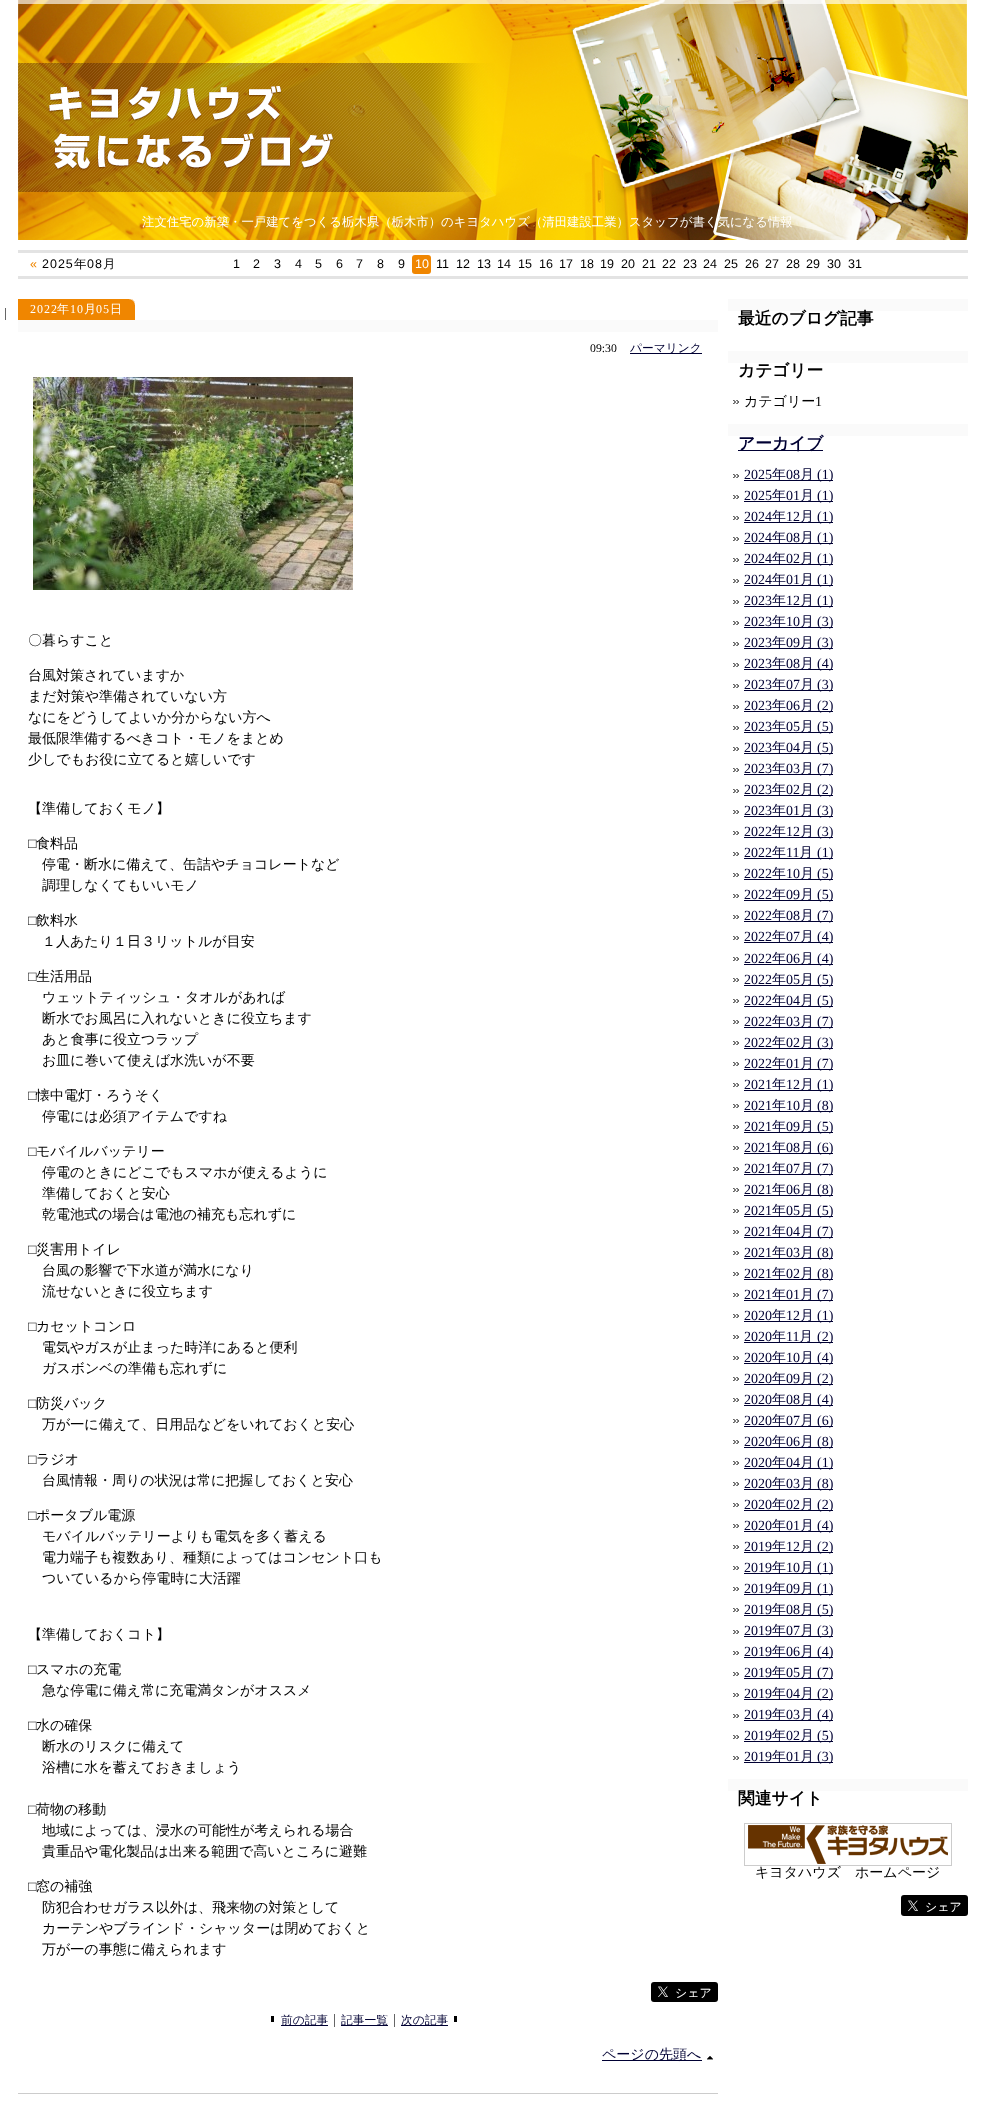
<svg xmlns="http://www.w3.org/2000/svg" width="985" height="2110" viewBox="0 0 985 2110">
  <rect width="100%" height="100%" fill="#fff"/>
  <image x="18" y="0" width="950" height="240" href="img/1.png"/>
  <path d="M18 0h949v4H18z" fill="#ffffffa6"/>
  <path d="M18 276h950v3H18z" fill="#e3e3e3"/>
  <path d="M18 250h950v3H18z" fill="#e3e3e3"/>
  <rect x="412" y="255" width="19" height="19" rx="3" fill="#f08600"/>
  <path d="M18 299h117v21H18z" fill="#f08600"/>
  <image x="129" y="299" width="6" height="6" href="img/2.png"/>
  <path d="M18 320h700v12H18z" fill="#fafafa"/>
  <path d="M5 308h1v12H5z" fill="#666"/>
  <path d="M630 353h72v1H630z" fill="#003"/>
  <image x="33" y="377" width="320" height="213" href="img/3.png"/>
  <rect x="651" y="1982" width="67" height="20" rx="3" fill="#000"/>
  <image x="658" y="1986" width="10" height="11" href="img/4.png"/>
  <path d="M271 2016h3v6H271z" fill="#000"/>
  <path d="M281 2025h47v1H281z" fill="#003"/>
  <path d="M334 2014h1v13H334z" fill="#666"/>
  <path d="M341 2025h47v1H341z" fill="#003"/>
  <path d="M394 2014h1v13H394z" fill="#666"/>
  <path d="M401 2025h47v1H401z" fill="#003"/>
  <path d="M454 2016h3v6H454z" fill="#000"/>
  <path d="M602 2060h100v1H602z" fill="#003"/>
  <image x="707" y="2056" width="6" height="4" href="img/5.png"/>
  <path d="M18 2093h700v1H18z" fill="#ccc"/>
  <path d="M728 299h240v12H728z" fill="#fafafa"/>
  <path d="M728 351h240v12H728z" fill="#fafafa"/>
  <image x="733" y="400" width="6" height="4" href="img/6.png"/>
  <path d="M728 424h240v12H728z" fill="#fafafa"/>
  <path d="M738 450h85v1H738z" fill="#003"/>
  <image x="733" y="474" width="6" height="4" href="img/6.png"/>
  <path d="M744 480h89v1H744z" fill="#003"/>
  <image x="733" y="495" width="6" height="4" href="img/6.png"/>
  <path d="M744 501h89v1H744z" fill="#003"/>
  <image x="733" y="516" width="6" height="4" href="img/6.png"/>
  <path d="M744 522h89v1H744z" fill="#003"/>
  <image x="733" y="537" width="6" height="4" href="img/6.png"/>
  <path d="M744 543h89v1H744z" fill="#003"/>
  <image x="733" y="558" width="6" height="4" href="img/6.png"/>
  <path d="M744 564h89v1H744z" fill="#003"/>
  <image x="733" y="579" width="6" height="4" href="img/6.png"/>
  <path d="M744 585h89v1H744z" fill="#003"/>
  <image x="733" y="600" width="6" height="4" href="img/6.png"/>
  <path d="M744 606h89v1H744z" fill="#003"/>
  <image x="733" y="621" width="6" height="4" href="img/6.png"/>
  <path d="M744 627h89v1H744z" fill="#003"/>
  <image x="733" y="642" width="6" height="4" href="img/6.png"/>
  <path d="M744 648h89v1H744z" fill="#003"/>
  <image x="733" y="663" width="6" height="4" href="img/6.png"/>
  <path d="M744 669h89v1H744z" fill="#003"/>
  <image x="733" y="684" width="6" height="4" href="img/6.png"/>
  <path d="M744 690h89v1H744z" fill="#003"/>
  <image x="733" y="705" width="6" height="4" href="img/6.png"/>
  <path d="M744 711h89v1H744z" fill="#003"/>
  <image x="733" y="726" width="6" height="4" href="img/6.png"/>
  <path d="M744 732h89v1H744z" fill="#003"/>
  <image x="733" y="747" width="6" height="4" href="img/6.png"/>
  <path d="M744 753h89v1H744z" fill="#003"/>
  <image x="733" y="768" width="6" height="4" href="img/6.png"/>
  <path d="M744 774h89v1H744z" fill="#003"/>
  <image x="733" y="789" width="6" height="4" href="img/6.png"/>
  <path d="M744 795h89v1H744z" fill="#003"/>
  <image x="733" y="810" width="6" height="4" href="img/6.png"/>
  <path d="M744 816h89v1H744z" fill="#003"/>
  <image x="733" y="831" width="6" height="4" href="img/6.png"/>
  <path d="M744 837h89v1H744z" fill="#003"/>
  <image x="733" y="852" width="6" height="4" href="img/6.png"/>
  <path d="M744 858h89v1H744z" fill="#003"/>
  <image x="733" y="873" width="6" height="4" href="img/6.png"/>
  <path d="M744 879h89v1H744z" fill="#003"/>
  <image x="733" y="894" width="6" height="4" href="img/6.png"/>
  <path d="M744 900h89v1H744z" fill="#003"/>
  <image x="733" y="915" width="6" height="4" href="img/6.png"/>
  <path d="M744 921h89v1H744z" fill="#003"/>
  <image x="733" y="936" width="6" height="4" href="img/6.png"/>
  <path d="M744 942h89v1H744z" fill="#003"/>
  <image x="733" y="957" width="6" height="4" href="img/6.png"/>
  <path d="M744 964h89v1H744z" fill="#003"/>
  <image x="733" y="978" width="6" height="4" href="img/6.png"/>
  <path d="M744 985h89v1H744z" fill="#003"/>
  <image x="733" y="999" width="6" height="4" href="img/6.png"/>
  <path d="M744 1006h89v1H744z" fill="#003"/>
  <image x="733" y="1020" width="6" height="4" href="img/6.png"/>
  <path d="M744 1027h89v1H744z" fill="#003"/>
  <image x="733" y="1041" width="6" height="4" href="img/6.png"/>
  <path d="M744 1048h89v1H744z" fill="#003"/>
  <image x="733" y="1062" width="6" height="4" href="img/6.png"/>
  <path d="M744 1069h89v1H744z" fill="#003"/>
  <image x="733" y="1083" width="6" height="4" href="img/6.png"/>
  <path d="M744 1090h89v1H744z" fill="#003"/>
  <image x="733" y="1104" width="6" height="4" href="img/6.png"/>
  <path d="M744 1111h89v1H744z" fill="#003"/>
  <image x="733" y="1125" width="6" height="4" href="img/6.png"/>
  <path d="M744 1132h89v1H744z" fill="#003"/>
  <image x="733" y="1146" width="6" height="4" href="img/6.png"/>
  <path d="M744 1153h89v1H744z" fill="#003"/>
  <image x="733" y="1167" width="6" height="4" href="img/6.png"/>
  <path d="M744 1174h89v1H744z" fill="#003"/>
  <image x="733" y="1188" width="6" height="4" href="img/6.png"/>
  <path d="M744 1195h89v1H744z" fill="#003"/>
  <image x="733" y="1209" width="6" height="4" href="img/6.png"/>
  <path d="M744 1216h89v1H744z" fill="#003"/>
  <image x="733" y="1230" width="6" height="4" href="img/6.png"/>
  <path d="M744 1237h89v1H744z" fill="#003"/>
  <image x="733" y="1251" width="6" height="4" href="img/6.png"/>
  <path d="M744 1258h89v1H744z" fill="#003"/>
  <image x="733" y="1272" width="6" height="4" href="img/6.png"/>
  <path d="M744 1279h89v1H744z" fill="#003"/>
  <image x="733" y="1293" width="6" height="4" href="img/6.png"/>
  <path d="M744 1300h89v1H744z" fill="#003"/>
  <image x="733" y="1314" width="6" height="4" href="img/6.png"/>
  <path d="M744 1321h89v1H744z" fill="#003"/>
  <image x="733" y="1335" width="6" height="4" href="img/6.png"/>
  <path d="M744 1342h89v1H744z" fill="#003"/>
  <image x="733" y="1356" width="6" height="4" href="img/6.png"/>
  <path d="M744 1363h89v1H744z" fill="#003"/>
  <image x="733" y="1377" width="6" height="4" href="img/6.png"/>
  <path d="M744 1384h89v1H744z" fill="#003"/>
  <image x="733" y="1398" width="6" height="4" href="img/6.png"/>
  <path d="M744 1405h89v1H744z" fill="#003"/>
  <image x="733" y="1419" width="6" height="4" href="img/6.png"/>
  <path d="M744 1426h89v1H744z" fill="#003"/>
  <image x="733" y="1440" width="6" height="4" href="img/6.png"/>
  <path d="M744 1447h89v1H744z" fill="#003"/>
  <image x="733" y="1461" width="6" height="4" href="img/6.png"/>
  <path d="M744 1468h89v1H744z" fill="#003"/>
  <image x="733" y="1482" width="6" height="4" href="img/6.png"/>
  <path d="M744 1489h89v1H744z" fill="#003"/>
  <image x="733" y="1503" width="6" height="4" href="img/6.png"/>
  <path d="M744 1510h89v1H744z" fill="#003"/>
  <image x="733" y="1524" width="6" height="4" href="img/6.png"/>
  <path d="M744 1531h89v1H744z" fill="#003"/>
  <image x="733" y="1545" width="6" height="4" href="img/6.png"/>
  <path d="M744 1552h89v1H744z" fill="#003"/>
  <image x="733" y="1566" width="6" height="4" href="img/6.png"/>
  <path d="M744 1573h89v1H744z" fill="#003"/>
  <image x="733" y="1587" width="6" height="4" href="img/6.png"/>
  <path d="M744 1594h89v1H744z" fill="#003"/>
  <image x="733" y="1608" width="6" height="4" href="img/6.png"/>
  <path d="M744 1615h89v1H744z" fill="#003"/>
  <image x="733" y="1630" width="6" height="4" href="img/6.png"/>
  <path d="M744 1636h89v1H744z" fill="#003"/>
  <image x="733" y="1651" width="6" height="4" href="img/6.png"/>
  <path d="M744 1657h89v1H744z" fill="#003"/>
  <image x="733" y="1672" width="6" height="4" href="img/6.png"/>
  <path d="M744 1678h89v1H744z" fill="#003"/>
  <image x="733" y="1693" width="6" height="4" href="img/6.png"/>
  <path d="M744 1699h89v1H744z" fill="#003"/>
  <image x="733" y="1714" width="6" height="4" href="img/6.png"/>
  <path d="M744 1720h89v1H744z" fill="#003"/>
  <image x="733" y="1735" width="6" height="4" href="img/6.png"/>
  <path d="M744 1741h89v1H744z" fill="#003"/>
  <image x="733" y="1756" width="6" height="4" href="img/6.png"/>
  <path d="M744 1762h89v1H744z" fill="#003"/>
  <path d="M728 1779h240v12H728z" fill="#fafafa"/>
  <image x="744" y="1823" width="208" height="43" href="img/7.png"/>
  <rect x="901" y="1895" width="67" height="21" rx="3" fill="#000"/>
  <image x="908" y="1900" width="10" height="11" href="img/4.png"/>
  <text x="142" y="226" font-family="WenQuanYi Zen Hei" font-size="12.4" font-weight="500" fill="#fff">注文住宅の新築・一戸建てをつくる栃木県（栃木市）のキヨタハウズ（清田建設工業）スタッフが書く気になる情報</text>
  <text x="30" y="268" font-family="Liberation Sans" font-size="12.5" letter-spacing="1" fill="#f08600">«</text>
  <text x="42" y="268" font-family="Liberation Sans" font-size="12.5" letter-spacing="1" fill="#000">2025</text>
  <text x="74" y="268" font-family="WenQuanYi Zen Hei" font-size="12.5" font-weight="500" letter-spacing="1" fill="#000">年</text>
  <text x="87" y="268" font-family="Liberation Sans" font-size="12.5" letter-spacing="1" fill="#000">08</text>
  <text x="103" y="268" font-family="WenQuanYi Zen Hei" font-size="12.5" font-weight="500" letter-spacing="1" fill="#000">月</text>
  <g font-family="Liberation Sans" font-size="12.5" fill="#000">
    <text x="233" y="268">1</text>
    <text x="253" y="268">2</text>
    <text x="274" y="268">3</text>
    <text x="295" y="268">4</text>
    <text x="315" y="268">5</text>
    <text x="336" y="268">6</text>
    <text x="356" y="268">7</text>
    <text x="377" y="268">8</text>
    <text x="398" y="268">9</text>
  </g>
  <text x="415" y="268" font-family="Liberation Sans" font-size="12.5" fill="#fff">10</text>
  <g font-family="Liberation Sans" font-size="12.5" fill="#000">
    <text x="436" y="268">11</text>
    <text x="456" y="268">12</text>
    <text x="477" y="268">13</text>
    <text x="497" y="268">14</text>
    <text x="518" y="268">15</text>
    <text x="539" y="268">16</text>
    <text x="559" y="268">17</text>
    <text x="580" y="268">18</text>
    <text x="600" y="268">19</text>
    <text x="621" y="268">20</text>
    <text x="642" y="268">21</text>
    <text x="662" y="268">22</text>
    <text x="683" y="268">23</text>
    <text x="703" y="268">24</text>
    <text x="724" y="268">25</text>
    <text x="745" y="268">26</text>
    <text x="765" y="268">27</text>
    <text x="786" y="268">28</text>
    <text x="806" y="268">29</text>
    <text x="827" y="268">30</text>
    <text x="848" y="268">31</text>
  </g>
  <text x="30" y="313" font-family="Liberation Serif" font-size="12" letter-spacing="1" fill="#fff">2022</text>
  <text x="57" y="313" font-family="WenQuanYi Zen Hei" font-size="12" font-weight="500" letter-spacing="1" fill="#fff">年</text>
  <text x="70" y="313" font-family="Liberation Serif" font-size="12" letter-spacing="1" fill="#fff">10</text>
  <text x="84" y="313" font-family="WenQuanYi Zen Hei" font-size="12" font-weight="500" letter-spacing="1" fill="#fff">月</text>
  <text x="96" y="313" font-family="Liberation Serif" font-size="12" letter-spacing="1" fill="#fff">05</text>
  <text x="110" y="313" font-family="WenQuanYi Zen Hei" font-size="12" font-weight="500" letter-spacing="1" fill="#fff">日</text>
  <text x="590" y="352" font-family="Liberation Serif" font-size="11.75" fill="#000">09:30</text>
  <text x="630" y="352" font-family="WenQuanYi Zen Hei" font-size="11.75" font-weight="500" fill="#003">パーマリンク</text>
  <g font-family="WenQuanYi Zen Hei" font-size="14" font-weight="500" fill="#000">
    <text x="28" y="645">〇暮らすこと</text>
    <text x="28" y="680">台風対策されていますか</text>
    <text x="28" y="701">まだ対策や準備されていない方</text>
    <text x="28" y="722">なにをどうしてよいか分からない方へ</text>
    <text x="28" y="743">最低限準備するべきコト・モノをまとめ</text>
    <text x="28" y="764">少しでもお役に立てると嬉しいです</text>
    <text x="28" y="813">【準備しておくモノ】</text>
  </g>
  <text x="28" y="848" font-family="Liberation Serif" font-size="14" fill="#000">□</text>
  <g font-family="WenQuanYi Zen Hei" font-size="14" font-weight="500" fill="#000">
    <text x="36" y="848">食料品</text>
    <text x="42" y="869">停電・断水に備えて、缶詰やチョコレートなど</text>
    <text x="42" y="890">調理しなくてもいいモノ</text>
  </g>
  <text x="28" y="925" font-family="Liberation Serif" font-size="14" fill="#000">□</text>
  <g font-family="WenQuanYi Zen Hei" font-size="14" font-weight="500" fill="#000">
    <text x="36" y="925">飲料水</text>
    <text x="42" y="946">１人あたり１日３リットルが目安</text>
  </g>
  <text x="28" y="981" font-family="Liberation Serif" font-size="14" fill="#000">□</text>
  <g font-family="WenQuanYi Zen Hei" font-size="14" font-weight="500" fill="#000">
    <text x="36" y="981">生活用品</text>
    <text x="42" y="1002">ウェットティッシュ・タオルがあれば</text>
    <text x="42" y="1023">断水でお風呂に入れないときに役立ちます</text>
    <text x="42" y="1044">あと食事に役立つラップ</text>
    <text x="42" y="1065">お皿に巻いて使えば水洗いが不要</text>
  </g>
  <text x="28" y="1100" font-family="Liberation Serif" font-size="14" fill="#000">□</text>
  <g font-family="WenQuanYi Zen Hei" font-size="14" font-weight="500" fill="#000">
    <text x="36" y="1100">懐中電灯・ろうそく</text>
    <text x="42" y="1121">停電には必須アイテムですね</text>
  </g>
  <text x="28" y="1156" font-family="Liberation Serif" font-size="14" fill="#000">□</text>
  <g font-family="WenQuanYi Zen Hei" font-size="14" font-weight="500" fill="#000">
    <text x="36" y="1156">モバイルバッテリー</text>
    <text x="42" y="1177">停電のときにどこでもスマホが使えるように</text>
    <text x="42" y="1198">準備しておくと安心</text>
    <text x="42" y="1219">乾電池式の場合は電池の補充も忘れずに</text>
  </g>
  <text x="28" y="1254" font-family="Liberation Serif" font-size="14" fill="#000">□</text>
  <g font-family="WenQuanYi Zen Hei" font-size="14" font-weight="500" fill="#000">
    <text x="36" y="1254">災害用トイレ</text>
    <text x="42" y="1275">台風の影響で下水道が満水になり</text>
    <text x="42" y="1296">流せないときに役立ちます</text>
  </g>
  <text x="28" y="1331" font-family="Liberation Serif" font-size="14" fill="#000">□</text>
  <g font-family="WenQuanYi Zen Hei" font-size="14" font-weight="500" fill="#000">
    <text x="36" y="1331">カセットコンロ</text>
    <text x="42" y="1352">電気やガスが止まった時洋にあると便利</text>
    <text x="42" y="1373">ガスボンベの準備も忘れずに</text>
  </g>
  <text x="28" y="1408" font-family="Liberation Serif" font-size="14" fill="#000">□</text>
  <g font-family="WenQuanYi Zen Hei" font-size="14" font-weight="500" fill="#000">
    <text x="36" y="1408">防災バック</text>
    <text x="42" y="1429">万が一に備えて、日用品などをいれておくと安心</text>
  </g>
  <text x="28" y="1464" font-family="Liberation Serif" font-size="14" fill="#000">□</text>
  <g font-family="WenQuanYi Zen Hei" font-size="14" font-weight="500" fill="#000">
    <text x="36" y="1464">ラジオ</text>
    <text x="42" y="1485">台風情報・周りの状況は常に把握しておくと安心</text>
  </g>
  <text x="28" y="1520" font-family="Liberation Serif" font-size="14" fill="#000">□</text>
  <g font-family="WenQuanYi Zen Hei" font-size="14" font-weight="500" fill="#000">
    <text x="36" y="1520">ポータブル電源</text>
    <text x="42" y="1541">モバイルバッテリーよりも電気を多く蓄える</text>
    <text x="42" y="1562">電力端子も複数あり、種類によってはコンセント口も</text>
    <text x="42" y="1583">ついているから停電時に大活躍</text>
    <text x="28" y="1639">【準備しておくコト】</text>
  </g>
  <text x="28" y="1674" font-family="Liberation Serif" font-size="14" fill="#000">□</text>
  <g font-family="WenQuanYi Zen Hei" font-size="14" font-weight="500" fill="#000">
    <text x="36" y="1674">スマホの充電</text>
    <text x="42" y="1695">急な停電に備え常に充電満タンがオススメ</text>
  </g>
  <text x="28" y="1730" font-family="Liberation Serif" font-size="14" fill="#000">□</text>
  <g font-family="WenQuanYi Zen Hei" font-size="14" font-weight="500" fill="#000">
    <text x="36" y="1730">水の確保</text>
    <text x="42" y="1751">断水のリスクに備えて</text>
    <text x="42" y="1772">浴槽に水を蓄えておきましょう</text>
  </g>
  <text x="28" y="1814" font-family="Liberation Serif" font-size="14" fill="#000">□</text>
  <g font-family="WenQuanYi Zen Hei" font-size="14" font-weight="500" fill="#000">
    <text x="36" y="1814">荷物の移動</text>
    <text x="42" y="1835">地域によっては、浸水の可能性が考えられる場合</text>
    <text x="42" y="1856">貴重品や電化製品は出来る範囲で高いところに避難</text>
  </g>
  <text x="28" y="1891" font-family="Liberation Serif" font-size="14" fill="#000">□</text>
  <g font-family="WenQuanYi Zen Hei" font-size="14" font-weight="500" fill="#000">
    <text x="36" y="1891">窓の補強</text>
    <text x="42" y="1912">防犯合わせガラス以外は、飛来物の対策として</text>
    <text x="42" y="1933">カーテンやブラインド・シャッターは閉めておくと</text>
    <text x="42" y="1954">万が一の事態に備えられます</text>
  </g>
  <text x="675" y="1997" font-family="WenQuanYi Zen Hei" font-size="12" font-weight="500" fill="#fff">シェア</text>
  <g font-family="WenQuanYi Zen Hei" font-size="11.75" font-weight="500" fill="#003">
    <text x="281" y="2024">前の記事</text>
    <text x="341" y="2024">記事一覧</text>
    <text x="401" y="2024">次の記事</text>
  </g>
  <text x="602" y="2059" font-family="WenQuanYi Zen Hei" font-size="14" font-weight="500" fill="#003">ページの先頭へ</text>
  <g font-family="WenQuanYi Zen Hei" font-size="16.75" font-weight="bold" fill="#000">
    <text x="738" y="324">最近のブログ記事</text>
    <text x="738" y="376">カテゴリー</text>
  </g>
  <text x="744" y="406" font-family="WenQuanYi Zen Hei" font-size="14" font-weight="500" fill="#000">カテゴリー</text>
  <text x="815" y="406" font-family="Liberation Serif" font-size="14" fill="#000">1</text>
  <text x="738" y="449" font-family="WenQuanYi Zen Hei" font-size="16.75" font-weight="bold" fill="#003">アーカイブ</text>
  <text x="744" y="479" font-family="Liberation Serif" font-size="14" fill="#003">2025</text>
  <text x="772" y="479" font-family="WenQuanYi Zen Hei" font-size="14" font-weight="500" fill="#003">年</text>
  <text x="786" y="479" font-family="Liberation Serif" font-size="14" fill="#003">08</text>
  <text x="800" y="479" font-family="WenQuanYi Zen Hei" font-size="14" font-weight="500" fill="#003">月</text>
  <g font-family="Liberation Serif" font-size="14" fill="#003">
    <text x="817" y="479">(1)</text>
    <text x="744" y="500">2025</text>
  </g>
  <text x="772" y="500" font-family="WenQuanYi Zen Hei" font-size="14" font-weight="500" fill="#003">年</text>
  <text x="786" y="500" font-family="Liberation Serif" font-size="14" fill="#003">01</text>
  <text x="800" y="500" font-family="WenQuanYi Zen Hei" font-size="14" font-weight="500" fill="#003">月</text>
  <g font-family="Liberation Serif" font-size="14" fill="#003">
    <text x="817" y="500">(1)</text>
    <text x="744" y="521">2024</text>
  </g>
  <text x="772" y="521" font-family="WenQuanYi Zen Hei" font-size="14" font-weight="500" fill="#003">年</text>
  <text x="786" y="521" font-family="Liberation Serif" font-size="14" fill="#003">12</text>
  <text x="800" y="521" font-family="WenQuanYi Zen Hei" font-size="14" font-weight="500" fill="#003">月</text>
  <g font-family="Liberation Serif" font-size="14" fill="#003">
    <text x="817" y="521">(1)</text>
    <text x="744" y="542">2024</text>
  </g>
  <text x="772" y="542" font-family="WenQuanYi Zen Hei" font-size="14" font-weight="500" fill="#003">年</text>
  <text x="786" y="542" font-family="Liberation Serif" font-size="14" fill="#003">08</text>
  <text x="800" y="542" font-family="WenQuanYi Zen Hei" font-size="14" font-weight="500" fill="#003">月</text>
  <g font-family="Liberation Serif" font-size="14" fill="#003">
    <text x="817" y="542">(1)</text>
    <text x="744" y="563">2024</text>
  </g>
  <text x="772" y="563" font-family="WenQuanYi Zen Hei" font-size="14" font-weight="500" fill="#003">年</text>
  <text x="786" y="563" font-family="Liberation Serif" font-size="14" fill="#003">02</text>
  <text x="800" y="563" font-family="WenQuanYi Zen Hei" font-size="14" font-weight="500" fill="#003">月</text>
  <g font-family="Liberation Serif" font-size="14" fill="#003">
    <text x="817" y="563">(1)</text>
    <text x="744" y="584">2024</text>
  </g>
  <text x="772" y="584" font-family="WenQuanYi Zen Hei" font-size="14" font-weight="500" fill="#003">年</text>
  <text x="786" y="584" font-family="Liberation Serif" font-size="14" fill="#003">01</text>
  <text x="800" y="584" font-family="WenQuanYi Zen Hei" font-size="14" font-weight="500" fill="#003">月</text>
  <g font-family="Liberation Serif" font-size="14" fill="#003">
    <text x="817" y="584">(1)</text>
    <text x="744" y="605">2023</text>
  </g>
  <text x="772" y="605" font-family="WenQuanYi Zen Hei" font-size="14" font-weight="500" fill="#003">年</text>
  <text x="786" y="605" font-family="Liberation Serif" font-size="14" fill="#003">12</text>
  <text x="800" y="605" font-family="WenQuanYi Zen Hei" font-size="14" font-weight="500" fill="#003">月</text>
  <g font-family="Liberation Serif" font-size="14" fill="#003">
    <text x="817" y="605">(1)</text>
    <text x="744" y="626">2023</text>
  </g>
  <text x="772" y="626" font-family="WenQuanYi Zen Hei" font-size="14" font-weight="500" fill="#003">年</text>
  <text x="786" y="626" font-family="Liberation Serif" font-size="14" fill="#003">10</text>
  <text x="800" y="626" font-family="WenQuanYi Zen Hei" font-size="14" font-weight="500" fill="#003">月</text>
  <g font-family="Liberation Serif" font-size="14" fill="#003">
    <text x="817" y="626">(3)</text>
    <text x="744" y="647">2023</text>
  </g>
  <text x="772" y="647" font-family="WenQuanYi Zen Hei" font-size="14" font-weight="500" fill="#003">年</text>
  <text x="786" y="647" font-family="Liberation Serif" font-size="14" fill="#003">09</text>
  <text x="800" y="647" font-family="WenQuanYi Zen Hei" font-size="14" font-weight="500" fill="#003">月</text>
  <g font-family="Liberation Serif" font-size="14" fill="#003">
    <text x="817" y="647">(3)</text>
    <text x="744" y="668">2023</text>
  </g>
  <text x="772" y="668" font-family="WenQuanYi Zen Hei" font-size="14" font-weight="500" fill="#003">年</text>
  <text x="786" y="668" font-family="Liberation Serif" font-size="14" fill="#003">08</text>
  <text x="800" y="668" font-family="WenQuanYi Zen Hei" font-size="14" font-weight="500" fill="#003">月</text>
  <g font-family="Liberation Serif" font-size="14" fill="#003">
    <text x="817" y="668">(4)</text>
    <text x="744" y="689">2023</text>
  </g>
  <text x="772" y="689" font-family="WenQuanYi Zen Hei" font-size="14" font-weight="500" fill="#003">年</text>
  <text x="786" y="689" font-family="Liberation Serif" font-size="14" fill="#003">07</text>
  <text x="800" y="689" font-family="WenQuanYi Zen Hei" font-size="14" font-weight="500" fill="#003">月</text>
  <g font-family="Liberation Serif" font-size="14" fill="#003">
    <text x="817" y="689">(3)</text>
    <text x="744" y="710">2023</text>
  </g>
  <text x="772" y="710" font-family="WenQuanYi Zen Hei" font-size="14" font-weight="500" fill="#003">年</text>
  <text x="786" y="710" font-family="Liberation Serif" font-size="14" fill="#003">06</text>
  <text x="800" y="710" font-family="WenQuanYi Zen Hei" font-size="14" font-weight="500" fill="#003">月</text>
  <g font-family="Liberation Serif" font-size="14" fill="#003">
    <text x="817" y="710">(2)</text>
    <text x="744" y="731">2023</text>
  </g>
  <text x="772" y="731" font-family="WenQuanYi Zen Hei" font-size="14" font-weight="500" fill="#003">年</text>
  <text x="786" y="731" font-family="Liberation Serif" font-size="14" fill="#003">05</text>
  <text x="800" y="731" font-family="WenQuanYi Zen Hei" font-size="14" font-weight="500" fill="#003">月</text>
  <g font-family="Liberation Serif" font-size="14" fill="#003">
    <text x="817" y="731">(5)</text>
    <text x="744" y="752">2023</text>
  </g>
  <text x="772" y="752" font-family="WenQuanYi Zen Hei" font-size="14" font-weight="500" fill="#003">年</text>
  <text x="786" y="752" font-family="Liberation Serif" font-size="14" fill="#003">04</text>
  <text x="800" y="752" font-family="WenQuanYi Zen Hei" font-size="14" font-weight="500" fill="#003">月</text>
  <g font-family="Liberation Serif" font-size="14" fill="#003">
    <text x="817" y="752">(5)</text>
    <text x="744" y="773">2023</text>
  </g>
  <text x="772" y="773" font-family="WenQuanYi Zen Hei" font-size="14" font-weight="500" fill="#003">年</text>
  <text x="786" y="773" font-family="Liberation Serif" font-size="14" fill="#003">03</text>
  <text x="800" y="773" font-family="WenQuanYi Zen Hei" font-size="14" font-weight="500" fill="#003">月</text>
  <g font-family="Liberation Serif" font-size="14" fill="#003">
    <text x="817" y="773">(7)</text>
    <text x="744" y="794">2023</text>
  </g>
  <text x="772" y="794" font-family="WenQuanYi Zen Hei" font-size="14" font-weight="500" fill="#003">年</text>
  <text x="786" y="794" font-family="Liberation Serif" font-size="14" fill="#003">02</text>
  <text x="800" y="794" font-family="WenQuanYi Zen Hei" font-size="14" font-weight="500" fill="#003">月</text>
  <g font-family="Liberation Serif" font-size="14" fill="#003">
    <text x="817" y="794">(2)</text>
    <text x="744" y="815">2023</text>
  </g>
  <text x="772" y="815" font-family="WenQuanYi Zen Hei" font-size="14" font-weight="500" fill="#003">年</text>
  <text x="786" y="815" font-family="Liberation Serif" font-size="14" fill="#003">01</text>
  <text x="800" y="815" font-family="WenQuanYi Zen Hei" font-size="14" font-weight="500" fill="#003">月</text>
  <g font-family="Liberation Serif" font-size="14" fill="#003">
    <text x="817" y="815">(3)</text>
    <text x="744" y="836">2022</text>
  </g>
  <text x="772" y="836" font-family="WenQuanYi Zen Hei" font-size="14" font-weight="500" fill="#003">年</text>
  <text x="786" y="836" font-family="Liberation Serif" font-size="14" fill="#003">12</text>
  <text x="800" y="836" font-family="WenQuanYi Zen Hei" font-size="14" font-weight="500" fill="#003">月</text>
  <g font-family="Liberation Serif" font-size="14" fill="#003">
    <text x="817" y="836">(3)</text>
    <text x="744" y="857">2022</text>
  </g>
  <text x="772" y="857" font-family="WenQuanYi Zen Hei" font-size="14" font-weight="500" fill="#003">年</text>
  <text x="786" y="857" font-family="Liberation Serif" font-size="14" fill="#003">11</text>
  <text x="799" y="857" font-family="WenQuanYi Zen Hei" font-size="14" font-weight="500" fill="#003">月</text>
  <g font-family="Liberation Serif" font-size="14" fill="#003">
    <text x="817" y="857">(1)</text>
    <text x="744" y="878">2022</text>
  </g>
  <text x="772" y="878" font-family="WenQuanYi Zen Hei" font-size="14" font-weight="500" fill="#003">年</text>
  <text x="786" y="878" font-family="Liberation Serif" font-size="14" fill="#003">10</text>
  <text x="800" y="878" font-family="WenQuanYi Zen Hei" font-size="14" font-weight="500" fill="#003">月</text>
  <g font-family="Liberation Serif" font-size="14" fill="#003">
    <text x="817" y="878">(5)</text>
    <text x="744" y="899">2022</text>
  </g>
  <text x="772" y="899" font-family="WenQuanYi Zen Hei" font-size="14" font-weight="500" fill="#003">年</text>
  <text x="786" y="899" font-family="Liberation Serif" font-size="14" fill="#003">09</text>
  <text x="800" y="899" font-family="WenQuanYi Zen Hei" font-size="14" font-weight="500" fill="#003">月</text>
  <g font-family="Liberation Serif" font-size="14" fill="#003">
    <text x="817" y="899">(5)</text>
    <text x="744" y="920">2022</text>
  </g>
  <text x="772" y="920" font-family="WenQuanYi Zen Hei" font-size="14" font-weight="500" fill="#003">年</text>
  <text x="786" y="920" font-family="Liberation Serif" font-size="14" fill="#003">08</text>
  <text x="800" y="920" font-family="WenQuanYi Zen Hei" font-size="14" font-weight="500" fill="#003">月</text>
  <g font-family="Liberation Serif" font-size="14" fill="#003">
    <text x="817" y="920">(7)</text>
    <text x="744" y="941">2022</text>
  </g>
  <text x="772" y="941" font-family="WenQuanYi Zen Hei" font-size="14" font-weight="500" fill="#003">年</text>
  <text x="786" y="941" font-family="Liberation Serif" font-size="14" fill="#003">07</text>
  <text x="800" y="941" font-family="WenQuanYi Zen Hei" font-size="14" font-weight="500" fill="#003">月</text>
  <g font-family="Liberation Serif" font-size="14" fill="#003">
    <text x="817" y="941">(4)</text>
    <text x="744" y="963">2022</text>
  </g>
  <text x="772" y="963" font-family="WenQuanYi Zen Hei" font-size="14" font-weight="500" fill="#003">年</text>
  <text x="786" y="963" font-family="Liberation Serif" font-size="14" fill="#003">06</text>
  <text x="800" y="963" font-family="WenQuanYi Zen Hei" font-size="14" font-weight="500" fill="#003">月</text>
  <g font-family="Liberation Serif" font-size="14" fill="#003">
    <text x="817" y="963">(4)</text>
    <text x="744" y="984">2022</text>
  </g>
  <text x="772" y="984" font-family="WenQuanYi Zen Hei" font-size="14" font-weight="500" fill="#003">年</text>
  <text x="786" y="984" font-family="Liberation Serif" font-size="14" fill="#003">05</text>
  <text x="800" y="984" font-family="WenQuanYi Zen Hei" font-size="14" font-weight="500" fill="#003">月</text>
  <g font-family="Liberation Serif" font-size="14" fill="#003">
    <text x="817" y="984">(5)</text>
    <text x="744" y="1005">2022</text>
  </g>
  <text x="772" y="1005" font-family="WenQuanYi Zen Hei" font-size="14" font-weight="500" fill="#003">年</text>
  <text x="786" y="1005" font-family="Liberation Serif" font-size="14" fill="#003">04</text>
  <text x="800" y="1005" font-family="WenQuanYi Zen Hei" font-size="14" font-weight="500" fill="#003">月</text>
  <g font-family="Liberation Serif" font-size="14" fill="#003">
    <text x="817" y="1005">(5)</text>
    <text x="744" y="1026">2022</text>
  </g>
  <text x="772" y="1026" font-family="WenQuanYi Zen Hei" font-size="14" font-weight="500" fill="#003">年</text>
  <text x="786" y="1026" font-family="Liberation Serif" font-size="14" fill="#003">03</text>
  <text x="800" y="1026" font-family="WenQuanYi Zen Hei" font-size="14" font-weight="500" fill="#003">月</text>
  <g font-family="Liberation Serif" font-size="14" fill="#003">
    <text x="817" y="1026">(7)</text>
    <text x="744" y="1047">2022</text>
  </g>
  <text x="772" y="1047" font-family="WenQuanYi Zen Hei" font-size="14" font-weight="500" fill="#003">年</text>
  <text x="786" y="1047" font-family="Liberation Serif" font-size="14" fill="#003">02</text>
  <text x="800" y="1047" font-family="WenQuanYi Zen Hei" font-size="14" font-weight="500" fill="#003">月</text>
  <g font-family="Liberation Serif" font-size="14" fill="#003">
    <text x="817" y="1047">(3)</text>
    <text x="744" y="1068">2022</text>
  </g>
  <text x="772" y="1068" font-family="WenQuanYi Zen Hei" font-size="14" font-weight="500" fill="#003">年</text>
  <text x="786" y="1068" font-family="Liberation Serif" font-size="14" fill="#003">01</text>
  <text x="800" y="1068" font-family="WenQuanYi Zen Hei" font-size="14" font-weight="500" fill="#003">月</text>
  <g font-family="Liberation Serif" font-size="14" fill="#003">
    <text x="817" y="1068">(7)</text>
    <text x="744" y="1089">2021</text>
  </g>
  <text x="772" y="1089" font-family="WenQuanYi Zen Hei" font-size="14" font-weight="500" fill="#003">年</text>
  <text x="786" y="1089" font-family="Liberation Serif" font-size="14" fill="#003">12</text>
  <text x="800" y="1089" font-family="WenQuanYi Zen Hei" font-size="14" font-weight="500" fill="#003">月</text>
  <g font-family="Liberation Serif" font-size="14" fill="#003">
    <text x="817" y="1089">(1)</text>
    <text x="744" y="1110">2021</text>
  </g>
  <text x="772" y="1110" font-family="WenQuanYi Zen Hei" font-size="14" font-weight="500" fill="#003">年</text>
  <text x="786" y="1110" font-family="Liberation Serif" font-size="14" fill="#003">10</text>
  <text x="800" y="1110" font-family="WenQuanYi Zen Hei" font-size="14" font-weight="500" fill="#003">月</text>
  <g font-family="Liberation Serif" font-size="14" fill="#003">
    <text x="817" y="1110">(8)</text>
    <text x="744" y="1131">2021</text>
  </g>
  <text x="772" y="1131" font-family="WenQuanYi Zen Hei" font-size="14" font-weight="500" fill="#003">年</text>
  <text x="786" y="1131" font-family="Liberation Serif" font-size="14" fill="#003">09</text>
  <text x="800" y="1131" font-family="WenQuanYi Zen Hei" font-size="14" font-weight="500" fill="#003">月</text>
  <g font-family="Liberation Serif" font-size="14" fill="#003">
    <text x="817" y="1131">(5)</text>
    <text x="744" y="1152">2021</text>
  </g>
  <text x="772" y="1152" font-family="WenQuanYi Zen Hei" font-size="14" font-weight="500" fill="#003">年</text>
  <text x="786" y="1152" font-family="Liberation Serif" font-size="14" fill="#003">08</text>
  <text x="800" y="1152" font-family="WenQuanYi Zen Hei" font-size="14" font-weight="500" fill="#003">月</text>
  <g font-family="Liberation Serif" font-size="14" fill="#003">
    <text x="817" y="1152">(6)</text>
    <text x="744" y="1173">2021</text>
  </g>
  <text x="772" y="1173" font-family="WenQuanYi Zen Hei" font-size="14" font-weight="500" fill="#003">年</text>
  <text x="786" y="1173" font-family="Liberation Serif" font-size="14" fill="#003">07</text>
  <text x="800" y="1173" font-family="WenQuanYi Zen Hei" font-size="14" font-weight="500" fill="#003">月</text>
  <g font-family="Liberation Serif" font-size="14" fill="#003">
    <text x="817" y="1173">(7)</text>
    <text x="744" y="1194">2021</text>
  </g>
  <text x="772" y="1194" font-family="WenQuanYi Zen Hei" font-size="14" font-weight="500" fill="#003">年</text>
  <text x="786" y="1194" font-family="Liberation Serif" font-size="14" fill="#003">06</text>
  <text x="800" y="1194" font-family="WenQuanYi Zen Hei" font-size="14" font-weight="500" fill="#003">月</text>
  <g font-family="Liberation Serif" font-size="14" fill="#003">
    <text x="817" y="1194">(8)</text>
    <text x="744" y="1215">2021</text>
  </g>
  <text x="772" y="1215" font-family="WenQuanYi Zen Hei" font-size="14" font-weight="500" fill="#003">年</text>
  <text x="786" y="1215" font-family="Liberation Serif" font-size="14" fill="#003">05</text>
  <text x="800" y="1215" font-family="WenQuanYi Zen Hei" font-size="14" font-weight="500" fill="#003">月</text>
  <g font-family="Liberation Serif" font-size="14" fill="#003">
    <text x="817" y="1215">(5)</text>
    <text x="744" y="1236">2021</text>
  </g>
  <text x="772" y="1236" font-family="WenQuanYi Zen Hei" font-size="14" font-weight="500" fill="#003">年</text>
  <text x="786" y="1236" font-family="Liberation Serif" font-size="14" fill="#003">04</text>
  <text x="800" y="1236" font-family="WenQuanYi Zen Hei" font-size="14" font-weight="500" fill="#003">月</text>
  <g font-family="Liberation Serif" font-size="14" fill="#003">
    <text x="817" y="1236">(7)</text>
    <text x="744" y="1257">2021</text>
  </g>
  <text x="772" y="1257" font-family="WenQuanYi Zen Hei" font-size="14" font-weight="500" fill="#003">年</text>
  <text x="786" y="1257" font-family="Liberation Serif" font-size="14" fill="#003">03</text>
  <text x="800" y="1257" font-family="WenQuanYi Zen Hei" font-size="14" font-weight="500" fill="#003">月</text>
  <g font-family="Liberation Serif" font-size="14" fill="#003">
    <text x="817" y="1257">(8)</text>
    <text x="744" y="1278">2021</text>
  </g>
  <text x="772" y="1278" font-family="WenQuanYi Zen Hei" font-size="14" font-weight="500" fill="#003">年</text>
  <text x="786" y="1278" font-family="Liberation Serif" font-size="14" fill="#003">02</text>
  <text x="800" y="1278" font-family="WenQuanYi Zen Hei" font-size="14" font-weight="500" fill="#003">月</text>
  <g font-family="Liberation Serif" font-size="14" fill="#003">
    <text x="817" y="1278">(8)</text>
    <text x="744" y="1299">2021</text>
  </g>
  <text x="772" y="1299" font-family="WenQuanYi Zen Hei" font-size="14" font-weight="500" fill="#003">年</text>
  <text x="786" y="1299" font-family="Liberation Serif" font-size="14" fill="#003">01</text>
  <text x="800" y="1299" font-family="WenQuanYi Zen Hei" font-size="14" font-weight="500" fill="#003">月</text>
  <g font-family="Liberation Serif" font-size="14" fill="#003">
    <text x="817" y="1299">(7)</text>
    <text x="744" y="1320">2020</text>
  </g>
  <text x="772" y="1320" font-family="WenQuanYi Zen Hei" font-size="14" font-weight="500" fill="#003">年</text>
  <text x="786" y="1320" font-family="Liberation Serif" font-size="14" fill="#003">12</text>
  <text x="800" y="1320" font-family="WenQuanYi Zen Hei" font-size="14" font-weight="500" fill="#003">月</text>
  <g font-family="Liberation Serif" font-size="14" fill="#003">
    <text x="817" y="1320">(1)</text>
    <text x="744" y="1341">2020</text>
  </g>
  <text x="772" y="1341" font-family="WenQuanYi Zen Hei" font-size="14" font-weight="500" fill="#003">年</text>
  <text x="786" y="1341" font-family="Liberation Serif" font-size="14" fill="#003">11</text>
  <text x="799" y="1341" font-family="WenQuanYi Zen Hei" font-size="14" font-weight="500" fill="#003">月</text>
  <g font-family="Liberation Serif" font-size="14" fill="#003">
    <text x="817" y="1341">(2)</text>
    <text x="744" y="1362">2020</text>
  </g>
  <text x="772" y="1362" font-family="WenQuanYi Zen Hei" font-size="14" font-weight="500" fill="#003">年</text>
  <text x="786" y="1362" font-family="Liberation Serif" font-size="14" fill="#003">10</text>
  <text x="800" y="1362" font-family="WenQuanYi Zen Hei" font-size="14" font-weight="500" fill="#003">月</text>
  <g font-family="Liberation Serif" font-size="14" fill="#003">
    <text x="817" y="1362">(4)</text>
    <text x="744" y="1383">2020</text>
  </g>
  <text x="772" y="1383" font-family="WenQuanYi Zen Hei" font-size="14" font-weight="500" fill="#003">年</text>
  <text x="786" y="1383" font-family="Liberation Serif" font-size="14" fill="#003">09</text>
  <text x="800" y="1383" font-family="WenQuanYi Zen Hei" font-size="14" font-weight="500" fill="#003">月</text>
  <g font-family="Liberation Serif" font-size="14" fill="#003">
    <text x="817" y="1383">(2)</text>
    <text x="744" y="1404">2020</text>
  </g>
  <text x="772" y="1404" font-family="WenQuanYi Zen Hei" font-size="14" font-weight="500" fill="#003">年</text>
  <text x="786" y="1404" font-family="Liberation Serif" font-size="14" fill="#003">08</text>
  <text x="800" y="1404" font-family="WenQuanYi Zen Hei" font-size="14" font-weight="500" fill="#003">月</text>
  <g font-family="Liberation Serif" font-size="14" fill="#003">
    <text x="817" y="1404">(4)</text>
    <text x="744" y="1425">2020</text>
  </g>
  <text x="772" y="1425" font-family="WenQuanYi Zen Hei" font-size="14" font-weight="500" fill="#003">年</text>
  <text x="786" y="1425" font-family="Liberation Serif" font-size="14" fill="#003">07</text>
  <text x="800" y="1425" font-family="WenQuanYi Zen Hei" font-size="14" font-weight="500" fill="#003">月</text>
  <g font-family="Liberation Serif" font-size="14" fill="#003">
    <text x="817" y="1425">(6)</text>
    <text x="744" y="1446">2020</text>
  </g>
  <text x="772" y="1446" font-family="WenQuanYi Zen Hei" font-size="14" font-weight="500" fill="#003">年</text>
  <text x="786" y="1446" font-family="Liberation Serif" font-size="14" fill="#003">06</text>
  <text x="800" y="1446" font-family="WenQuanYi Zen Hei" font-size="14" font-weight="500" fill="#003">月</text>
  <g font-family="Liberation Serif" font-size="14" fill="#003">
    <text x="817" y="1446">(8)</text>
    <text x="744" y="1467">2020</text>
  </g>
  <text x="772" y="1467" font-family="WenQuanYi Zen Hei" font-size="14" font-weight="500" fill="#003">年</text>
  <text x="786" y="1467" font-family="Liberation Serif" font-size="14" fill="#003">04</text>
  <text x="800" y="1467" font-family="WenQuanYi Zen Hei" font-size="14" font-weight="500" fill="#003">月</text>
  <g font-family="Liberation Serif" font-size="14" fill="#003">
    <text x="817" y="1467">(1)</text>
    <text x="744" y="1488">2020</text>
  </g>
  <text x="772" y="1488" font-family="WenQuanYi Zen Hei" font-size="14" font-weight="500" fill="#003">年</text>
  <text x="786" y="1488" font-family="Liberation Serif" font-size="14" fill="#003">03</text>
  <text x="800" y="1488" font-family="WenQuanYi Zen Hei" font-size="14" font-weight="500" fill="#003">月</text>
  <g font-family="Liberation Serif" font-size="14" fill="#003">
    <text x="817" y="1488">(8)</text>
    <text x="744" y="1509">2020</text>
  </g>
  <text x="772" y="1509" font-family="WenQuanYi Zen Hei" font-size="14" font-weight="500" fill="#003">年</text>
  <text x="786" y="1509" font-family="Liberation Serif" font-size="14" fill="#003">02</text>
  <text x="800" y="1509" font-family="WenQuanYi Zen Hei" font-size="14" font-weight="500" fill="#003">月</text>
  <g font-family="Liberation Serif" font-size="14" fill="#003">
    <text x="817" y="1509">(2)</text>
    <text x="744" y="1530">2020</text>
  </g>
  <text x="772" y="1530" font-family="WenQuanYi Zen Hei" font-size="14" font-weight="500" fill="#003">年</text>
  <text x="786" y="1530" font-family="Liberation Serif" font-size="14" fill="#003">01</text>
  <text x="800" y="1530" font-family="WenQuanYi Zen Hei" font-size="14" font-weight="500" fill="#003">月</text>
  <g font-family="Liberation Serif" font-size="14" fill="#003">
    <text x="817" y="1530">(4)</text>
    <text x="744" y="1551">2019</text>
  </g>
  <text x="772" y="1551" font-family="WenQuanYi Zen Hei" font-size="14" font-weight="500" fill="#003">年</text>
  <text x="786" y="1551" font-family="Liberation Serif" font-size="14" fill="#003">12</text>
  <text x="800" y="1551" font-family="WenQuanYi Zen Hei" font-size="14" font-weight="500" fill="#003">月</text>
  <g font-family="Liberation Serif" font-size="14" fill="#003">
    <text x="817" y="1551">(2)</text>
    <text x="744" y="1572">2019</text>
  </g>
  <text x="772" y="1572" font-family="WenQuanYi Zen Hei" font-size="14" font-weight="500" fill="#003">年</text>
  <text x="786" y="1572" font-family="Liberation Serif" font-size="14" fill="#003">10</text>
  <text x="800" y="1572" font-family="WenQuanYi Zen Hei" font-size="14" font-weight="500" fill="#003">月</text>
  <g font-family="Liberation Serif" font-size="14" fill="#003">
    <text x="817" y="1572">(1)</text>
    <text x="744" y="1593">2019</text>
  </g>
  <text x="772" y="1593" font-family="WenQuanYi Zen Hei" font-size="14" font-weight="500" fill="#003">年</text>
  <text x="786" y="1593" font-family="Liberation Serif" font-size="14" fill="#003">09</text>
  <text x="800" y="1593" font-family="WenQuanYi Zen Hei" font-size="14" font-weight="500" fill="#003">月</text>
  <g font-family="Liberation Serif" font-size="14" fill="#003">
    <text x="817" y="1593">(1)</text>
    <text x="744" y="1614">2019</text>
  </g>
  <text x="772" y="1614" font-family="WenQuanYi Zen Hei" font-size="14" font-weight="500" fill="#003">年</text>
  <text x="786" y="1614" font-family="Liberation Serif" font-size="14" fill="#003">08</text>
  <text x="800" y="1614" font-family="WenQuanYi Zen Hei" font-size="14" font-weight="500" fill="#003">月</text>
  <g font-family="Liberation Serif" font-size="14" fill="#003">
    <text x="817" y="1614">(5)</text>
    <text x="744" y="1635">2019</text>
  </g>
  <text x="772" y="1635" font-family="WenQuanYi Zen Hei" font-size="14" font-weight="500" fill="#003">年</text>
  <text x="786" y="1635" font-family="Liberation Serif" font-size="14" fill="#003">07</text>
  <text x="800" y="1635" font-family="WenQuanYi Zen Hei" font-size="14" font-weight="500" fill="#003">月</text>
  <g font-family="Liberation Serif" font-size="14" fill="#003">
    <text x="817" y="1635">(3)</text>
    <text x="744" y="1656">2019</text>
  </g>
  <text x="772" y="1656" font-family="WenQuanYi Zen Hei" font-size="14" font-weight="500" fill="#003">年</text>
  <text x="786" y="1656" font-family="Liberation Serif" font-size="14" fill="#003">06</text>
  <text x="800" y="1656" font-family="WenQuanYi Zen Hei" font-size="14" font-weight="500" fill="#003">月</text>
  <g font-family="Liberation Serif" font-size="14" fill="#003">
    <text x="817" y="1656">(4)</text>
    <text x="744" y="1677">2019</text>
  </g>
  <text x="772" y="1677" font-family="WenQuanYi Zen Hei" font-size="14" font-weight="500" fill="#003">年</text>
  <text x="786" y="1677" font-family="Liberation Serif" font-size="14" fill="#003">05</text>
  <text x="800" y="1677" font-family="WenQuanYi Zen Hei" font-size="14" font-weight="500" fill="#003">月</text>
  <g font-family="Liberation Serif" font-size="14" fill="#003">
    <text x="817" y="1677">(7)</text>
    <text x="744" y="1698">2019</text>
  </g>
  <text x="772" y="1698" font-family="WenQuanYi Zen Hei" font-size="14" font-weight="500" fill="#003">年</text>
  <text x="786" y="1698" font-family="Liberation Serif" font-size="14" fill="#003">04</text>
  <text x="800" y="1698" font-family="WenQuanYi Zen Hei" font-size="14" font-weight="500" fill="#003">月</text>
  <g font-family="Liberation Serif" font-size="14" fill="#003">
    <text x="817" y="1698">(2)</text>
    <text x="744" y="1719">2019</text>
  </g>
  <text x="772" y="1719" font-family="WenQuanYi Zen Hei" font-size="14" font-weight="500" fill="#003">年</text>
  <text x="786" y="1719" font-family="Liberation Serif" font-size="14" fill="#003">03</text>
  <text x="800" y="1719" font-family="WenQuanYi Zen Hei" font-size="14" font-weight="500" fill="#003">月</text>
  <g font-family="Liberation Serif" font-size="14" fill="#003">
    <text x="817" y="1719">(4)</text>
    <text x="744" y="1740">2019</text>
  </g>
  <text x="772" y="1740" font-family="WenQuanYi Zen Hei" font-size="14" font-weight="500" fill="#003">年</text>
  <text x="786" y="1740" font-family="Liberation Serif" font-size="14" fill="#003">02</text>
  <text x="800" y="1740" font-family="WenQuanYi Zen Hei" font-size="14" font-weight="500" fill="#003">月</text>
  <g font-family="Liberation Serif" font-size="14" fill="#003">
    <text x="817" y="1740">(5)</text>
    <text x="744" y="1761">2019</text>
  </g>
  <text x="772" y="1761" font-family="WenQuanYi Zen Hei" font-size="14" font-weight="500" fill="#003">年</text>
  <text x="786" y="1761" font-family="Liberation Serif" font-size="14" fill="#003">01</text>
  <text x="800" y="1761" font-family="WenQuanYi Zen Hei" font-size="14" font-weight="500" fill="#003">月</text>
  <text x="817" y="1761" font-family="Liberation Serif" font-size="14" fill="#003">(3)</text>
  <text x="738" y="1804" font-family="WenQuanYi Zen Hei" font-size="16.75" font-weight="bold" fill="#000">関連サイト</text>
  <text x="755" y="1877" font-family="WenQuanYi Zen Hei" font-size="14" font-weight="500" fill="#000">キヨタハウズ　ホームページ</text>
  <text x="925" y="1911" font-family="WenQuanYi Zen Hei" font-size="12" font-weight="500" fill="#fff">シェア</text>
</svg>
